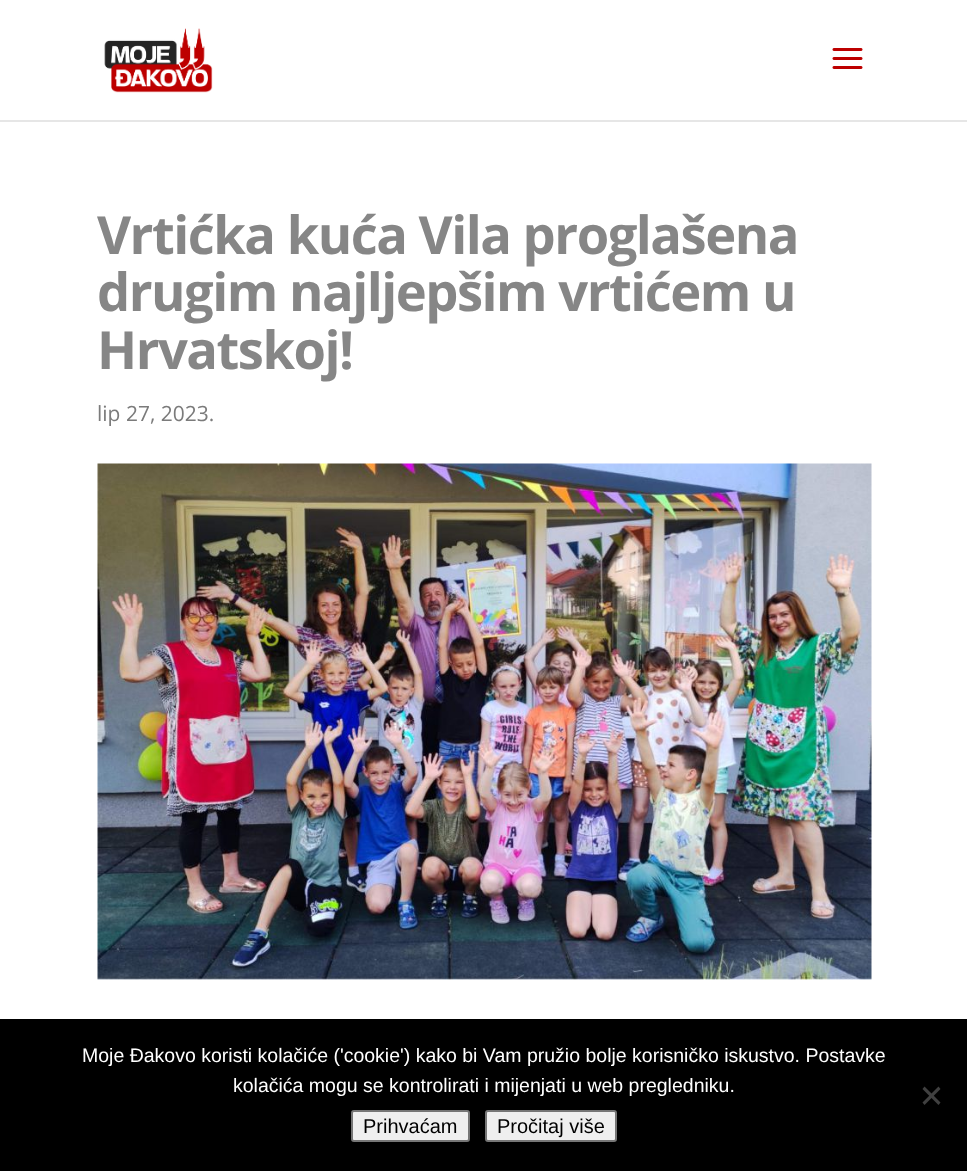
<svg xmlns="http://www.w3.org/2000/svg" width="967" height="1171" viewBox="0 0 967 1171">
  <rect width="100%" height="100%" fill="#fff"/>
  <path d="M0 120V122H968V2V120Z" fill="#e6e6e6"/>
  <image x="104" y="28" width="109" height="65" href="img/1.png"/>
  <image x="832" y="48" width="31" height="21" href="img/2.png"/>
  <image x="97" y="463" width="775" height="517" href="img/3.png"/>
  <path d="M0 1019h967v152H0z" fill="#000"/>
  <path d="M938.5 1086.5L940.5 1089L924.5 1105L922.5 1102.5Z" fill="#404040"/>
  <path d="M922.5 1089L924.5 1086.5L940.5 1102.5L938.5 1105Z" fill="#404040"/>
  <rect x="352" y="1111" width="117" height="30" rx="2" fill="#efefef" stroke="#767676" stroke-width="2"/>
  <rect x="486" y="1111" width="130" height="30" rx="2" fill="#efefef" stroke="#767676" stroke-width="2"/>
  <g font-family="Open Sans" font-size="52.5" font-weight="bold" letter-spacing="-1.5" fill="#868686">
    <text x="97" y="254">Vrtićka kuća Vila proglašena</text>
    <text x="97" y="311">drugim najljepšim vrtićem u</text>
    <text x="97" y="369">Hrvatskoj!</text>
  </g>
  <text x="97" y="421" font-family="Open Sans" font-size="21" fill="#7b7b7b">lip 27, 2023.</text>
  <g font-family="Liberation Sans" font-size="19.5" fill="#fff">
    <text x="82" y="1062">Moje Đakovo koristi kolačiće ('cookie') kako bi Vam pružio bolje korisničko iskustvo. Postavke</text>
    <text x="233" y="1092">kolačića mogu se kontrolirati i mijenjati u web pregledniku.</text>
  </g>
  <g font-family="Liberation Sans" font-size="20" fill="#000">
    <text x="363" y="1133">Prihvaćam</text>
    <text x="497" y="1133">Pročitaj više</text>
  </g>
</svg>
